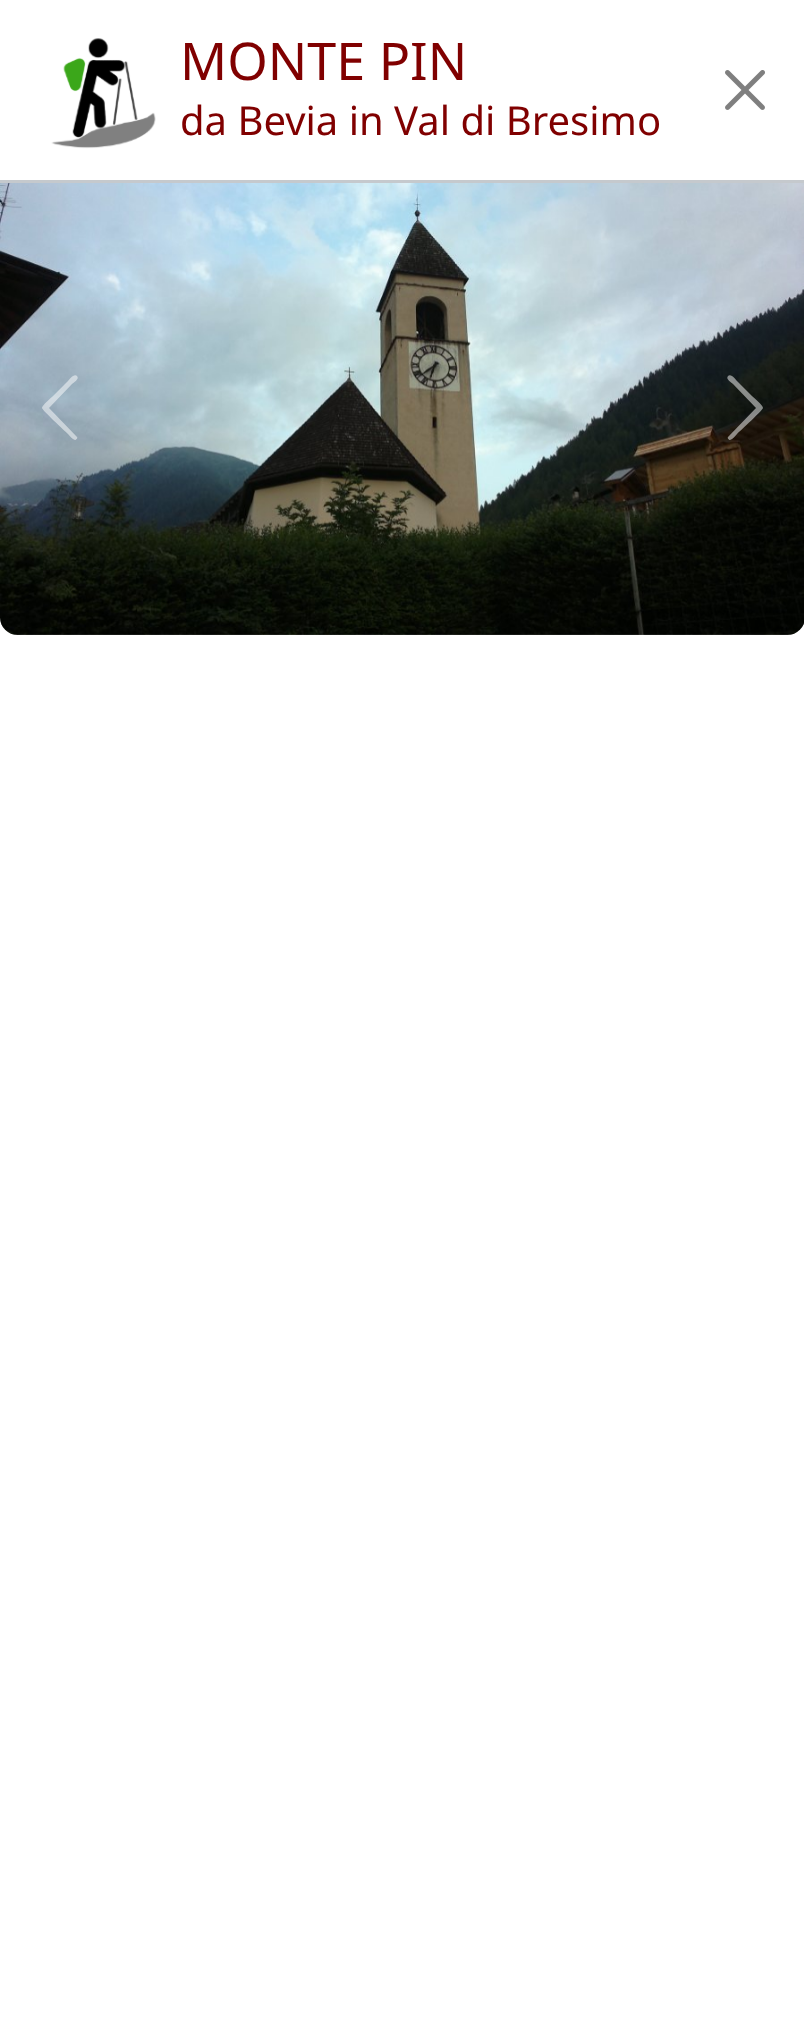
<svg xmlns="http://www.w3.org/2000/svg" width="804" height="2043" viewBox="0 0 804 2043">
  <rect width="100%" height="100%" fill="#fff"/>
  <path d="M0 180h804v3H0z" fill="#c5c9cd"/>
  <image x="51" y="38" width="105" height="111" href="img/1.png"/>
  <image x="725" y="70" width="40" height="40" href="img/2.png"/>
  <image x="0" y="183" width="804" height="452" href="img/3.png"/>
  <path d="M77 376C80 379 73 383 72 384L49 408L77 437C78 438 76 440 75 440C72 439 70 436 68 434C65 431 42 410 42 408C42 405 51 398 53 396L68 381C69 380 74 373 77 376Z" fill="#ffffff80"/>
  <path d="M728 376C731 373 736 380 737 381L752 396C754 398 763 405 763 408C763 410 740 431 737 434C735 436 733 439 730 440C729 440 727 438 728 437L756 408L733 384C732 383 725 379 728 376Z" fill="#ffffff80"/>
  <text x="180" y="80" font-family="Noto Sans" font-size="52" fill="#800000">MONTE PIN</text>
  <text x="180" y="135" font-family="Noto Sans" font-size="40" fill="#800000">da Bevia in Val di Bresimo</text>
</svg>
